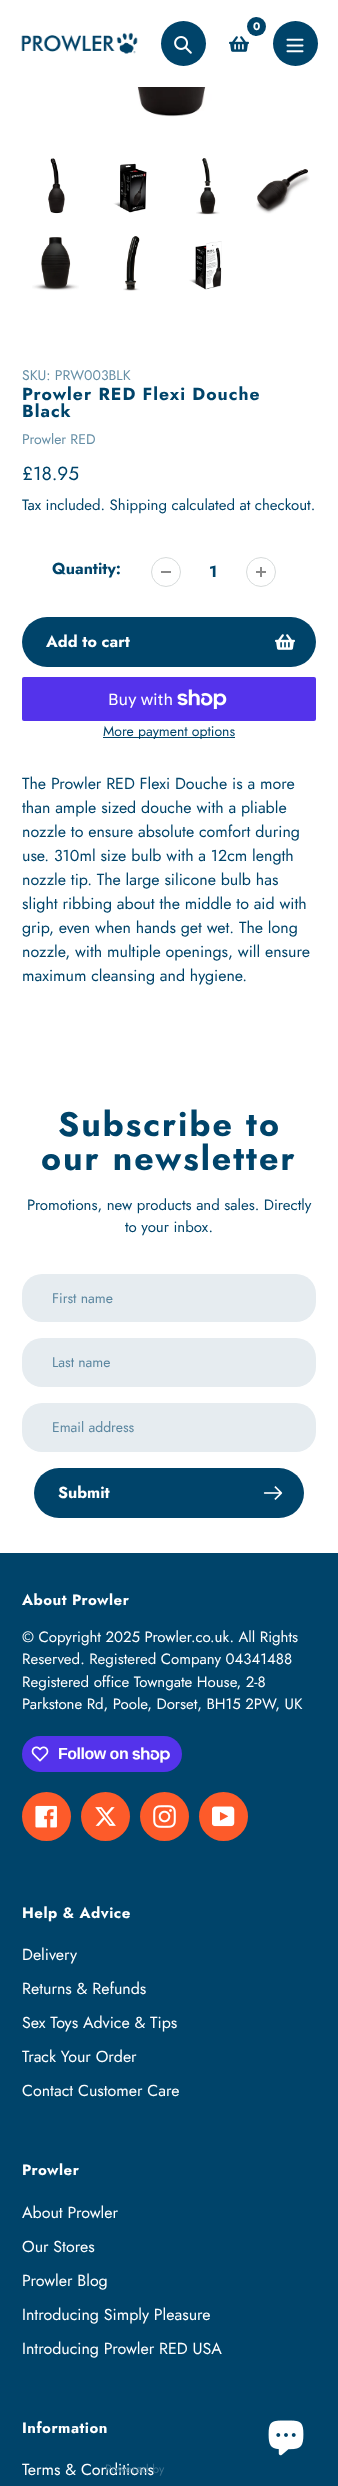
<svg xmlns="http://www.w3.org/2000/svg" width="338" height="2486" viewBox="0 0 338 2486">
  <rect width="100%" height="100%" fill="#fff"/>
  <circle cx="183.5" cy="43.5" r="22.5" fill="#00446a"/>
  <image x="174" y="36" width="18" height="18" href="img/1.png"/>
  <circle cx="256.5" cy="26.5" r="9.5" fill="#00446a"/>
  <image x="229" y="36" width="20" height="16" href="img/2.png"/>
  <circle cx="295.5" cy="43.5" r="22.5" fill="#00446a"/>
  <image x="286" y="38" width="18" height="15" href="img/3.png"/>
  <image x="21" y="32" width="117" height="22" href="img/4.png"/>
  <image x="130" y="87" width="82" height="30" href="img/5.png"/>
  <image x="48" y="158" width="17" height="56" href="img/6.png"/>
  <image x="113" y="163" width="34" height="50" href="img/7.png"/>
  <image x="196" y="158" width="24" height="57" href="img/8.png"/>
  <image x="256" y="169" width="54" height="45" href="img/9.png"/>
  <image x="32" y="237" width="47" height="54" href="img/10.png"/>
  <image x="123" y="236" width="17" height="55" href="img/11.png"/>
  <image x="189" y="241" width="33" height="49" href="img/12.png"/>
  <path d="M161 571h10v2H161z" fill="#898989"/>
  <circle cx="166" cy="572" r="14.5" fill="none" stroke="#d7dbdb"/>
  <image x="256" y="567" width="10" height="10" href="img/13.png"/>
  <circle cx="261" cy="572" r="14.5" fill="none" stroke="#d7dbdb"/>
  <rect x="22" y="617" width="294" height="50" rx="25" fill="#00446a"/>
  <image x="275" y="634" width="20" height="16" href="img/14.png"/>
  <rect x="22" y="677" width="294" height="44" rx="2" fill="#5433eb"/>
  <image x="177" y="689" width="50" height="20" href="img/15.png"/>
  <path d="M103 737h132v1H103z" fill="#00446a"/>
  <rect x="22" y="1274" width="294" height="48" rx="20" fill="#e6ecf0"/>
  <rect x="22" y="1338" width="294" height="49" rx="20" fill="#e6ecf0"/>
  <rect x="22" y="1403" width="294" height="49" rx="20" fill="#e6ecf0"/>
  <rect x="34" y="1468" width="270" height="50" rx="25" fill="#00446a"/>
  <image x="263" y="1486" width="20" height="14" href="img/16.png"/>
  <path d="M0 1553h338v933H0z" fill="#00446a"/>
  <rect x="22" y="1736" width="160" height="36" rx="18" fill="#5433eb"/>
  <image x="31" y="1746" width="18" height="16" href="img/17.png"/>
  <image x="132" y="1747" width="38" height="16" href="img/18.png"/>
  <circle cx="46.5" cy="1816.5" r="24.5" fill="#fd5b2a"/>
  <image x="35" y="1805" width="22" height="23" href="img/19.png"/>
  <circle cx="105.5" cy="1816.5" r="24.5" fill="#fd5b2a"/>
  <image x="95" y="1807" width="21" height="19" href="img/20.png"/>
  <circle cx="164.5" cy="1816.5" r="24.5" fill="#fd5b2a"/>
  <image x="153" y="1805" width="23" height="23" href="img/21.png"/>
  <circle cx="223.5" cy="1816.5" r="24.5" fill="#fd5b2a"/>
  <image x="212" y="1806" width="23" height="21" href="img/22.png"/>
  <image x="268" y="2420" width="36" height="36" href="img/23.png"/>
  <text x="253" y="30" font-family="Jost" font-size="11" font-weight="bold" fill="#fff">0</text>
  <text x="22" y="380" font-family="Jost" font-size="14" fill="#668fa6">SKU: PRW003BLK</text>
  <g font-family="Jost" font-size="17.6" font-weight="bold" letter-spacing="1" fill="#00446a">
    <text x="22" y="400">Prowler RED Flexi Douche</text>
    <text x="22" y="417">Black</text>
  </g>
  <text x="22" y="444" font-family="Jost" font-size="14" fill="#668fa6">Prowler RED</text>
  <text x="22" y="480" font-family="Jost" font-size="19" fill="#00446a">£18.95</text>
  <text x="22" y="510" font-family="Jost" font-size="15" fill="#00446a">Tax included. Shipping calculated at checkout.</text>
  <g font-family="Jost" font-size="16" font-weight="bold" fill="#00446a">
    <text x="52" y="574">Quantity:</text>
    <text x="209" y="577">1</text>
  </g>
  <text x="46" y="647" font-family="Jost" font-size="16" font-weight="bold" fill="#fff">Add to cart</text>
  <text x="108" y="705" font-family="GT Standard" font-size="16" fill="#fff">Buy with</text>
  <text x="103" y="736" font-family="Jost" font-size="14" fill="#00446a">More payment options</text>
  <g font-family="Jost" font-size="16" fill="#00446a">
    <text x="22" y="789">The Prowler RED Flexi Douche is a more</text>
    <text x="22" y="813">than ample sized douche with a pliable</text>
    <text x="22" y="837">nozzle to ensure absolute comfort during</text>
    <text x="22" y="861">use. 310ml size bulb with a 12cm length</text>
    <text x="22" y="885">nozzle tip. The large silicone bulb has</text>
    <text x="22" y="909">slight ribbing about the middle to aid with</text>
    <text x="22" y="933">grip, even when hands get wet. The long</text>
    <text x="22" y="957">nozzle, with multiple openings, will ensure</text>
    <text x="22" y="981">maximum cleansing and hygiene.</text>
  </g>
  <g font-family="Jost" font-size="34" font-weight="bold" letter-spacing="2" fill="#00446a">
    <text x="58" y="1136">Subscribe to</text>
    <text x="41" y="1170">our newsletter</text>
  </g>
  <g font-family="Jost" font-size="15" fill="#00446a">
    <text x="27" y="1210">Promotions, new products and sales. Directly</text>
    <text x="125" y="1232">to your inbox.</text>
  </g>
  <g font-family="Jost" font-size="14" fill="#5c87a0">
    <text x="52" y="1303">First name</text>
    <text x="52" y="1367">Last name</text>
    <text x="52" y="1432">Email address</text>
  </g>
  <text x="58" y="1498" font-family="Jost" font-size="16" font-weight="bold" fill="#fff">Submit</text>
  <text x="22" y="1605" font-family="Jost" font-size="15" font-weight="bold" letter-spacing="0.5" fill="#fff">About Prowler</text>
  <g font-family="Jost" font-size="15" fill="#fff">
    <text x="22" y="1642">© Copyright 2025 Prowler.co.uk. All Rights</text>
    <text x="22" y="1664">Reserved. Registered Company 04341488</text>
    <text x="22" y="1687">Registered office Towngate House, 2-8</text>
    <text x="22" y="1709">Parkstone Rd, Poole, Dorset, BH15 2PW, UK</text>
  </g>
  <text x="58" y="1759" font-family="Liberation Sans" font-size="16" font-weight="bold" letter-spacing="-0.5" fill="#fff">Follow on</text>
  <text x="22" y="1918" font-family="Jost" font-size="15" font-weight="bold" letter-spacing="0.5" fill="#fff">Help &amp; Advice</text>
  <g font-family="Jost" font-size="16" fill="#fff">
    <text x="22" y="1960">Delivery</text>
    <text x="22" y="1994">Returns &amp; Refunds</text>
    <text x="22" y="2028">Sex Toys Advice &amp; Tips</text>
    <text x="22" y="2062">Track Your Order</text>
    <text x="22" y="2096">Contact Customer Care</text>
  </g>
  <text x="22" y="2175" font-family="Jost" font-size="15" font-weight="bold" letter-spacing="0.5" fill="#fff">Prowler</text>
  <g font-family="Jost" font-size="16" fill="#fff">
    <text x="22" y="2218">About Prowler</text>
    <text x="22" y="2252">Our Stores</text>
    <text x="22" y="2286">Prowler Blog</text>
    <text x="22" y="2320">Introducing Simply Pleasure</text>
    <text x="22" y="2354">Introducing Prowler RED USA</text>
  </g>
  <text x="22" y="2433" font-family="Jost" font-size="15" font-weight="bold" letter-spacing="0.5" fill="#fff">Information</text>
  <text x="22" y="2475" font-family="Jost" font-size="16" fill="#fff">Terms &amp; Conditions</text>
  <text x="105" y="2473" font-family="Jost" font-size="12" fill="#3d718e">Powered by</text>
</svg>
